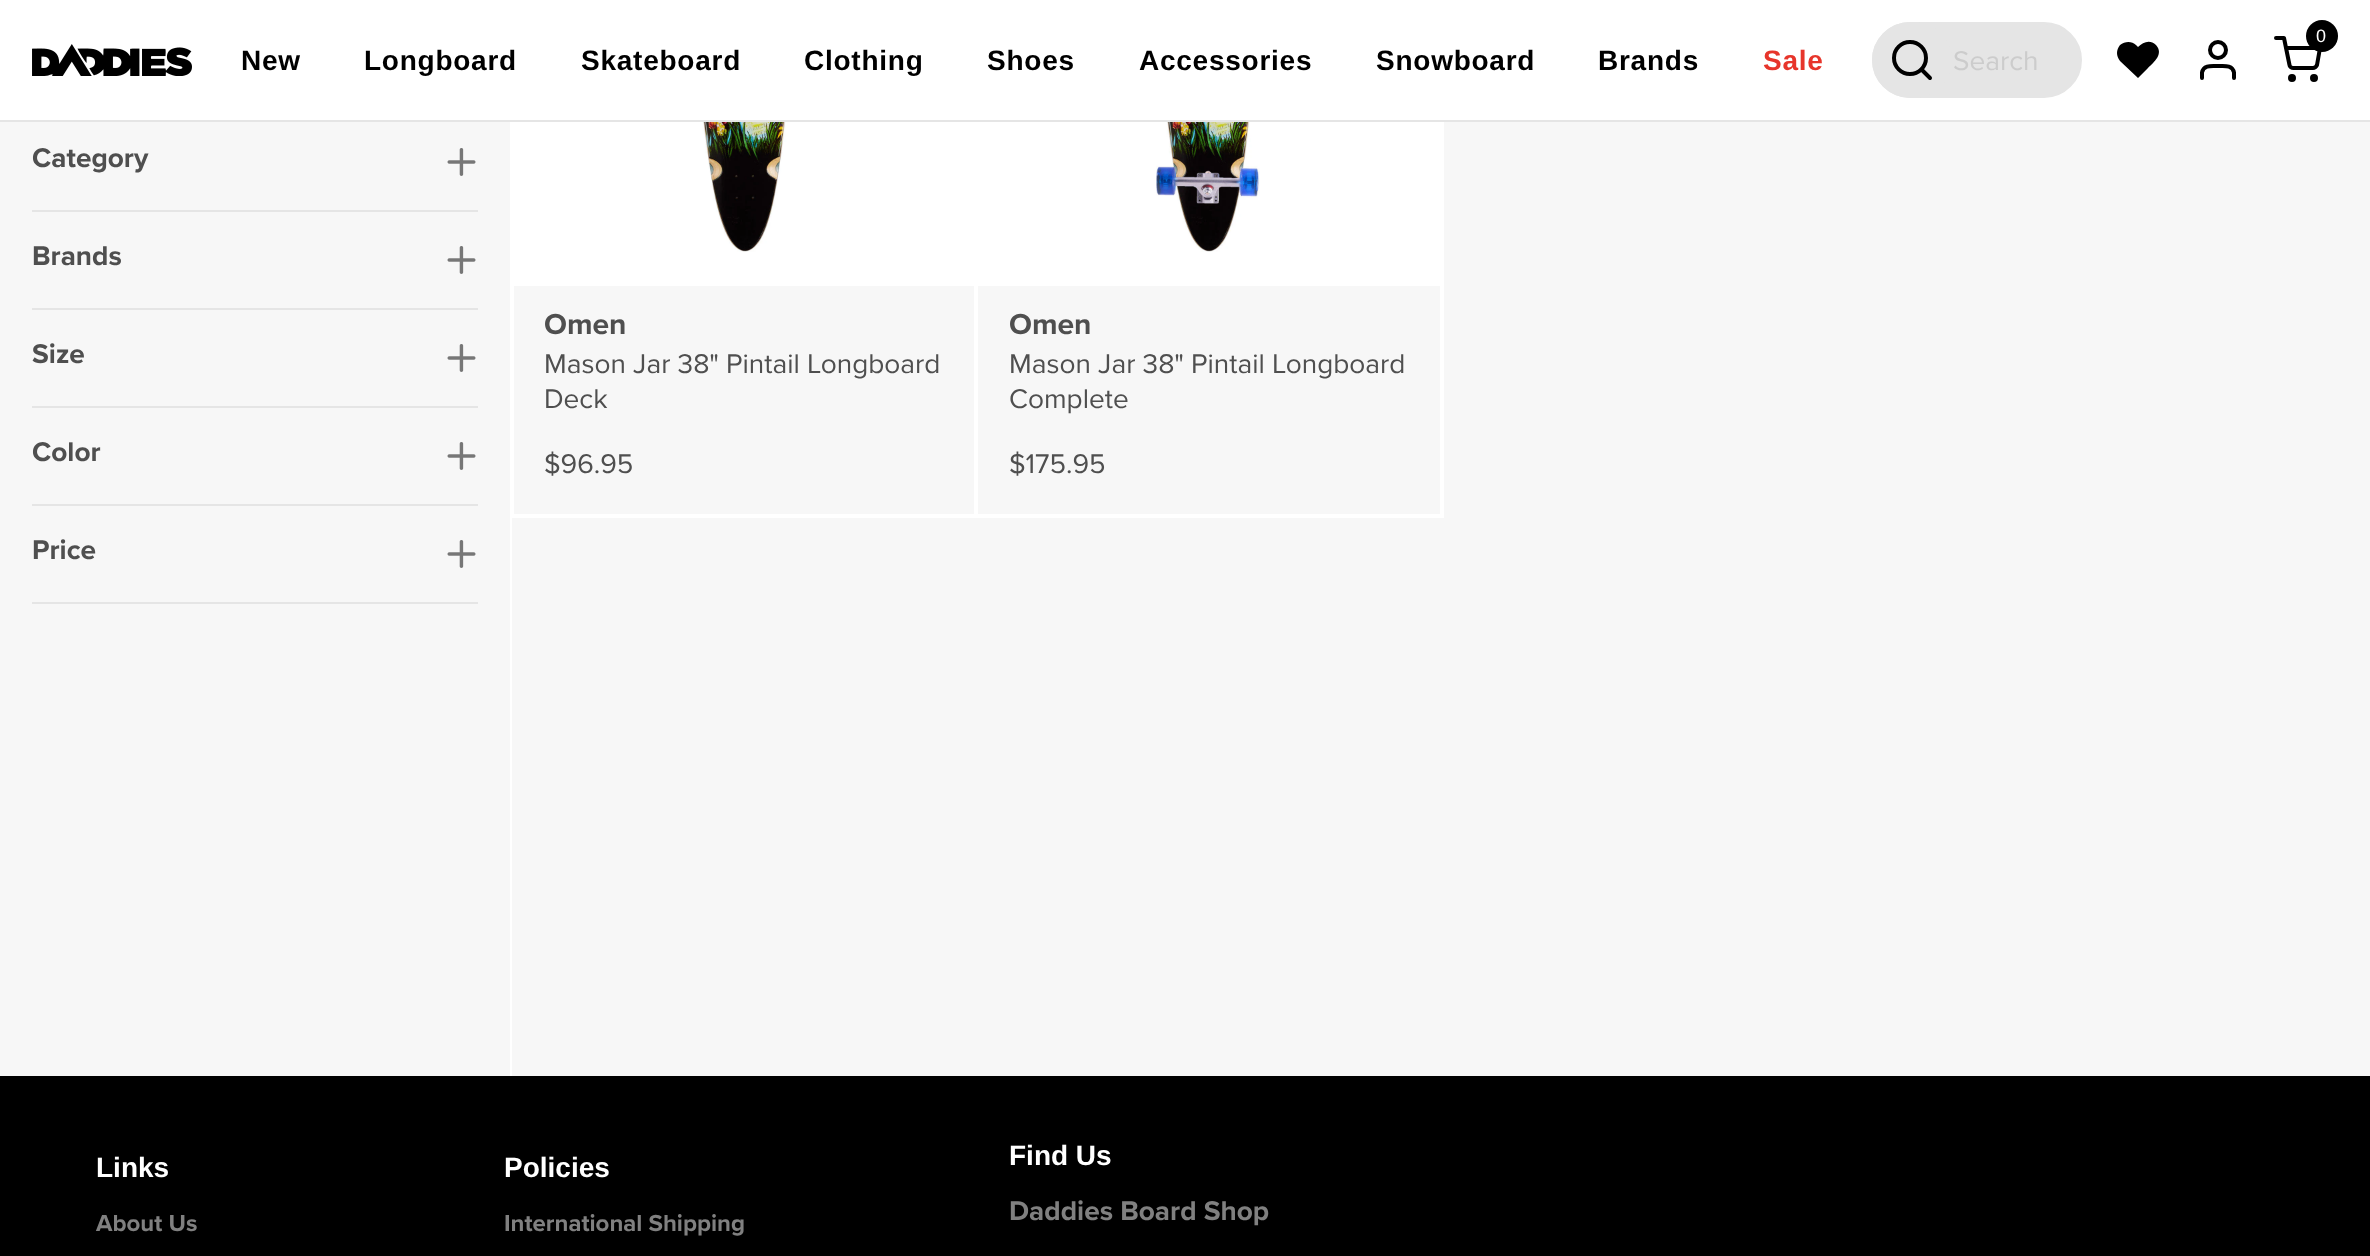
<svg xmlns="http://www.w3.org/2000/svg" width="2370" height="1256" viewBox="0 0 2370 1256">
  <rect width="100%" height="100%" fill="#000"/>
  <path d="M512 122h1858v954H512z" fill="#f7f7f7"/>
  <path d="M512 -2h464v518H512z" fill="none" stroke="#fff" stroke-width="4"/>
  <path d="M976 -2h466v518H976z" fill="none" stroke="#fff" stroke-width="4"/>
  <path d="M0 0h2370v120H0z" fill="#fff"/>
  <path d="M0 120h2370v2H0z" fill="#e5e5e5"/>
  <image x="32" y="44" width="160" height="32" href="img/1.png"/>
  <path d="M2276 38H2284L2289.5 65C2289.5 66.5 2291.5 68 2293.5 68H2313C2314.5 68 2316.5 66.5 2317 65L2320 48H2286" fill="none" stroke="#000" stroke-width="4" stroke-linecap="round" stroke-linejoin="round"/>
  <circle cx="2322" cy="36" r="16" fill="#000"/>
  <circle cx="2292" cy="78" r="2" fill="none" stroke="#000" stroke-width="4"/>
  <circle cx="2314" cy="78" r="2" fill="none" stroke="#000" stroke-width="4"/>
  <rect x="1873" y="23" width="208" height="74" rx="37" fill="#e5e5e5" stroke="#e5e5e5" stroke-width="2"/>
  <rect x="1872" y="22" width="80" height="76" rx="38" fill="#e5e5e5"/>
  <circle cx="1910" cy="58" r="16" fill="none" stroke="#000" stroke-width="4"/>
  <path d="M1930 78L1921.5 69.5" fill="none" stroke="#000" stroke-width="4" stroke-linecap="round" stroke-linejoin="round"/>
  <path d="M2156 45C2150 39 2143 42 2138 47L2136 45C2132 41 2125 41 2120 45C2116 50 2116 56 2120 61L2138 78L2148 68C2154 62 2164 54 2156 45Z" fill="#000"/>
  <path d="M2234 78V72.5C2232.5 64.5 2224 66 2218 66C2212 66 2203.5 64.5 2202 72.5V78" fill="none" stroke="#000" stroke-width="4" stroke-linecap="round" stroke-linejoin="round"/>
  <circle cx="2218" cy="50" r="8" fill="none" stroke="#000" stroke-width="4"/>
  <path d="M0 122h510v954H0z" fill="#f7f7f7"/>
  <path d="M510 518h2v558H510z" fill="#fff"/>
  <path d="M32 210h446v2H32z" fill="#e5e5e5"/>
  <image x="447" y="148" width="29" height="28" href="img/2.png"/>
  <path d="M32 308h446v2H32z" fill="#e5e5e5"/>
  <image x="447" y="246" width="29" height="28" href="img/2.png"/>
  <path d="M32 406h446v2H32z" fill="#e5e5e5"/>
  <image x="447" y="344" width="29" height="28" href="img/2.png"/>
  <path d="M32 504h446v2H32z" fill="#e5e5e5"/>
  <image x="447" y="442" width="29" height="28" href="img/2.png"/>
  <path d="M32 602h446v2H32z" fill="#e5e5e5"/>
  <image x="447" y="540" width="29" height="28" href="img/2.png"/>
  <path d="M514 122h460v164H514z" fill="#fff"/>
  <image x="696" y="122" width="96" height="130" href="img/3.png"/>
  <path d="M978 122h462v164H978z" fill="#fff"/>
  <image x="1156" y="122" width="104" height="130" href="img/4.png"/>
  <g font-family="Liberation Sans" font-size="28" font-weight="bold" letter-spacing="0.75" fill="#000">
    <text x="241" y="70">New</text>
    <text x="364" y="70">Longboard</text>
    <text x="581" y="70">Skateboard</text>
    <text x="804" y="70">Clothing</text>
    <text x="987" y="70">Shoes</text>
    <text x="1139" y="70">Accessories</text>
    <text x="1376" y="70">Snowboard</text>
    <text x="1598" y="70">Brands</text>
  </g>
  <text x="1763" y="70" font-family="Liberation Sans" font-size="28" font-weight="bold" letter-spacing="0.75" fill="#e7352b">Sale</text>
  <text x="2316" y="42" font-family="Liberation Sans" font-size="18" fill="#fff">0</text>
  <text x="1953" y="70" font-family="Proxima Nova" font-size="28" fill="#ccc">Search</text>
  <g font-family="Proxima Nova" font-size="28" font-weight="bold" fill="#4f4f4f">
    <text x="32" y="167">Category</text>
    <text x="32" y="265">Brands</text>
    <text x="32" y="363">Size</text>
    <text x="32" y="461">Color</text>
    <text x="32" y="559">Price</text>
  </g>
  <text x="544" y="334" font-family="Proxima Nova" font-size="30" font-weight="bold" fill="#4f4f4f">Omen</text>
  <g font-family="Proxima Nova" font-size="28" fill="#4f4f4f">
    <text x="544" y="373">Mason Jar 38" Pintail Longboard</text>
    <text x="544" y="408">Deck</text>
    <text x="544" y="473">$96.95</text>
  </g>
  <text x="1009" y="334" font-family="Proxima Nova" font-size="30" font-weight="bold" fill="#4f4f4f">Omen</text>
  <g font-family="Proxima Nova" font-size="28" fill="#4f4f4f">
    <text x="1009" y="373">Mason Jar 38" Pintail Longboard</text>
    <text x="1009" y="408">Complete</text>
    <text x="1009" y="473">$175.95</text>
  </g>
  <text x="96" y="1177" font-family="Liberation Sans" font-size="28" font-weight="bold" fill="#fff">Links</text>
  <text x="96" y="1231" font-family="Proxima Nova" font-size="24" font-weight="bold" fill="#808080">About Us</text>
  <text x="504" y="1177" font-family="Liberation Sans" font-size="28" font-weight="bold" fill="#fff">Policies</text>
  <text x="504" y="1231" font-family="Proxima Nova" font-size="24" font-weight="bold" fill="#808080">International Shipping</text>
  <text x="1009" y="1165" font-family="Liberation Sans" font-size="28" font-weight="bold" fill="#fff">Find Us</text>
  <text x="1009" y="1220" font-family="Proxima Nova" font-size="28" font-weight="bold" fill="#808080">Daddies Board Shop</text>
</svg>
